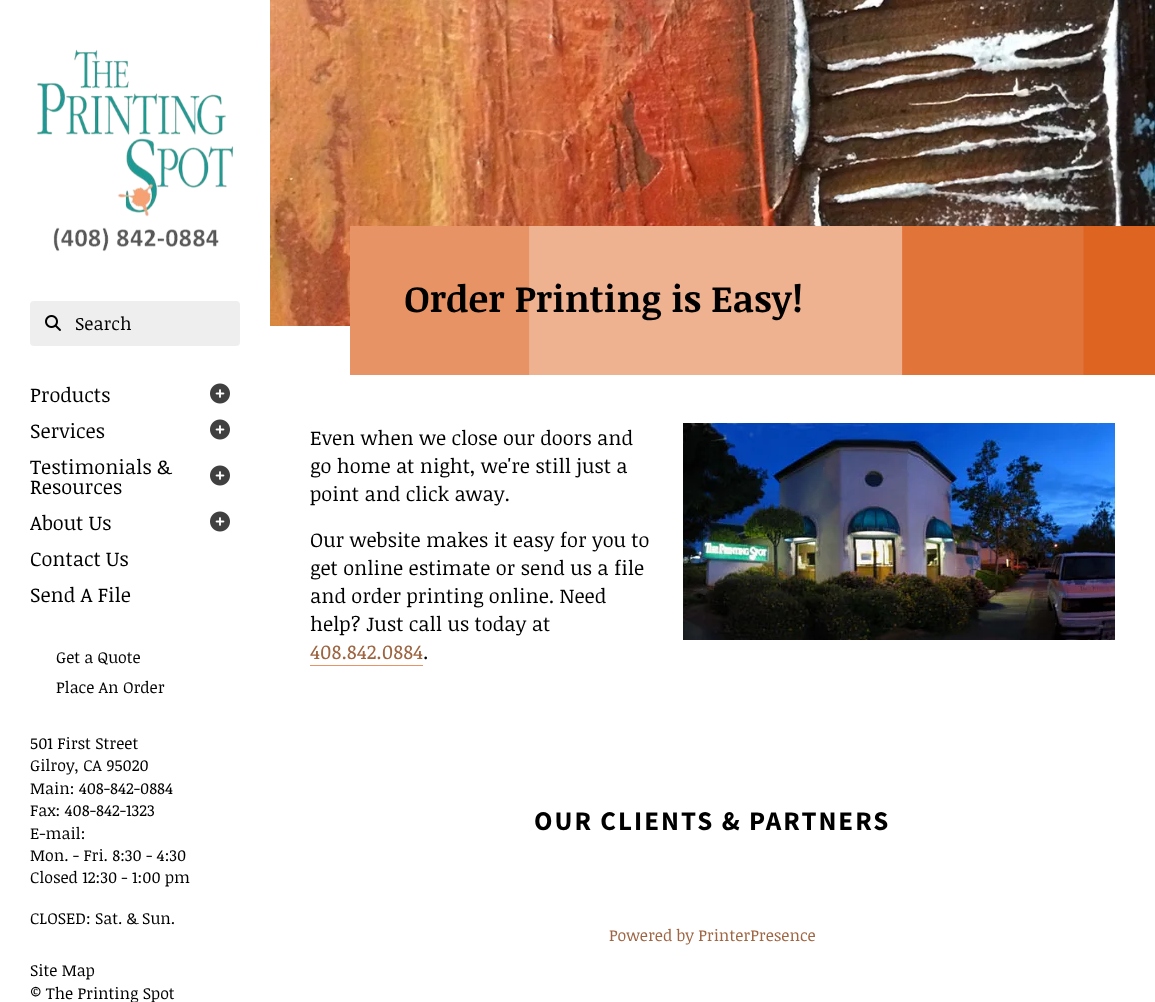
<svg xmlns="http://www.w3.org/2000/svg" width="1155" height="1002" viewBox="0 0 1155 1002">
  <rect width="100%" height="100%" fill="#fff"/>
  <image x="36" y="49" width="198" height="203" href="img/1.png"/>
  <rect x="30" y="301" width="210" height="45" rx="4" fill="#eee"/>
  <image x="45" y="315" width="16" height="16" href="img/2.png"/>
  <image x="210" y="383" width="20" height="21" href="img/3.png"/>
  <image x="210" y="419" width="20" height="21" href="img/3.png"/>
  <image x="210" y="465" width="20" height="21" href="img/3.png"/>
  <image x="210" y="511" width="20" height="21" href="img/3.png"/>
  <image x="270" y="0" width="885" height="326" href="img/4.png"/>
  <path d="M350 226h180v149H350z" fill="#e89365"/>
  <image x="529" y="226" width="626" height="149" href="img/5.png"/>
  <image x="683" y="423" width="432" height="217" href="img/6.png"/>
  <path d="M310 665h113v1H310z" fill="#e89365"/>
  <text x="75" y="330" font-family="Noticia Text" font-size="18" fill="#000">Search</text>
  <g font-family="Noticia Text" font-size="20" fill="#000">
    <text x="30" y="402">Products</text>
    <text x="30" y="438">Services</text>
    <text x="30" y="474">Testimonials &amp;</text>
    <text x="30" y="494">Resources</text>
    <text x="30" y="530">About Us</text>
    <text x="30" y="566">Contact Us</text>
    <text x="30" y="602">Send A File</text>
  </g>
  <g font-family="Noticia Text" font-size="16" fill="#000">
    <text x="56" y="663">Get a Quote</text>
    <text x="56" y="693">Place An Order</text>
    <text x="30" y="749">501 First Street</text>
    <text x="30" y="771">Gilroy, CA 95020</text>
    <text x="30" y="794">Main: 408-842-0884</text>
    <text x="30" y="816">Fax: 408-842-1323</text>
    <text x="30" y="839">E-mail:</text>
    <text x="30" y="861">Mon. - Fri. 8:30 - 4:30</text>
    <text x="30" y="883">Closed 12:30 - 1:00 pm</text>
    <text x="30" y="924">CLOSED: Sat. &amp; Sun.</text>
    <text x="30" y="976">Site Map</text>
    <text x="30" y="999">© The Printing Spot</text>
  </g>
  <text x="404" y="312" font-family="Noticia Text" font-size="37" font-weight="bold" fill="#000">Order Printing is Easy!</text>
  <g font-family="Noticia Text" font-size="20" fill="#000">
    <text x="310" y="445">Even when we close our doors and</text>
    <text x="310" y="473">go home at night, we're still just a</text>
    <text x="310" y="501">point and click away.</text>
    <text x="310" y="547">Our website makes it easy for you to</text>
    <text x="310" y="575">get online estimate or send us a file</text>
    <text x="310" y="603">and order printing online. Need</text>
    <text x="310" y="631">help? Just call us today at</text>
  </g>
  <text x="310" y="659" font-family="Noticia Text" font-size="20" fill="#9e6542">408.842.0884</text>
  <text x="423" y="659" font-family="Noticia Text" font-size="20" fill="#000">.</text>
  <text x="534" y="830" font-family="Source Sans Pro" font-size="27" font-weight="bold" letter-spacing="2" fill="#000">OUR CLIENTS &amp; PARTNERS</text>
  <text x="609" y="941" font-family="Noticia Text" font-size="16" fill="#9e6542">Powered by PrinterPresence</text>
</svg>
